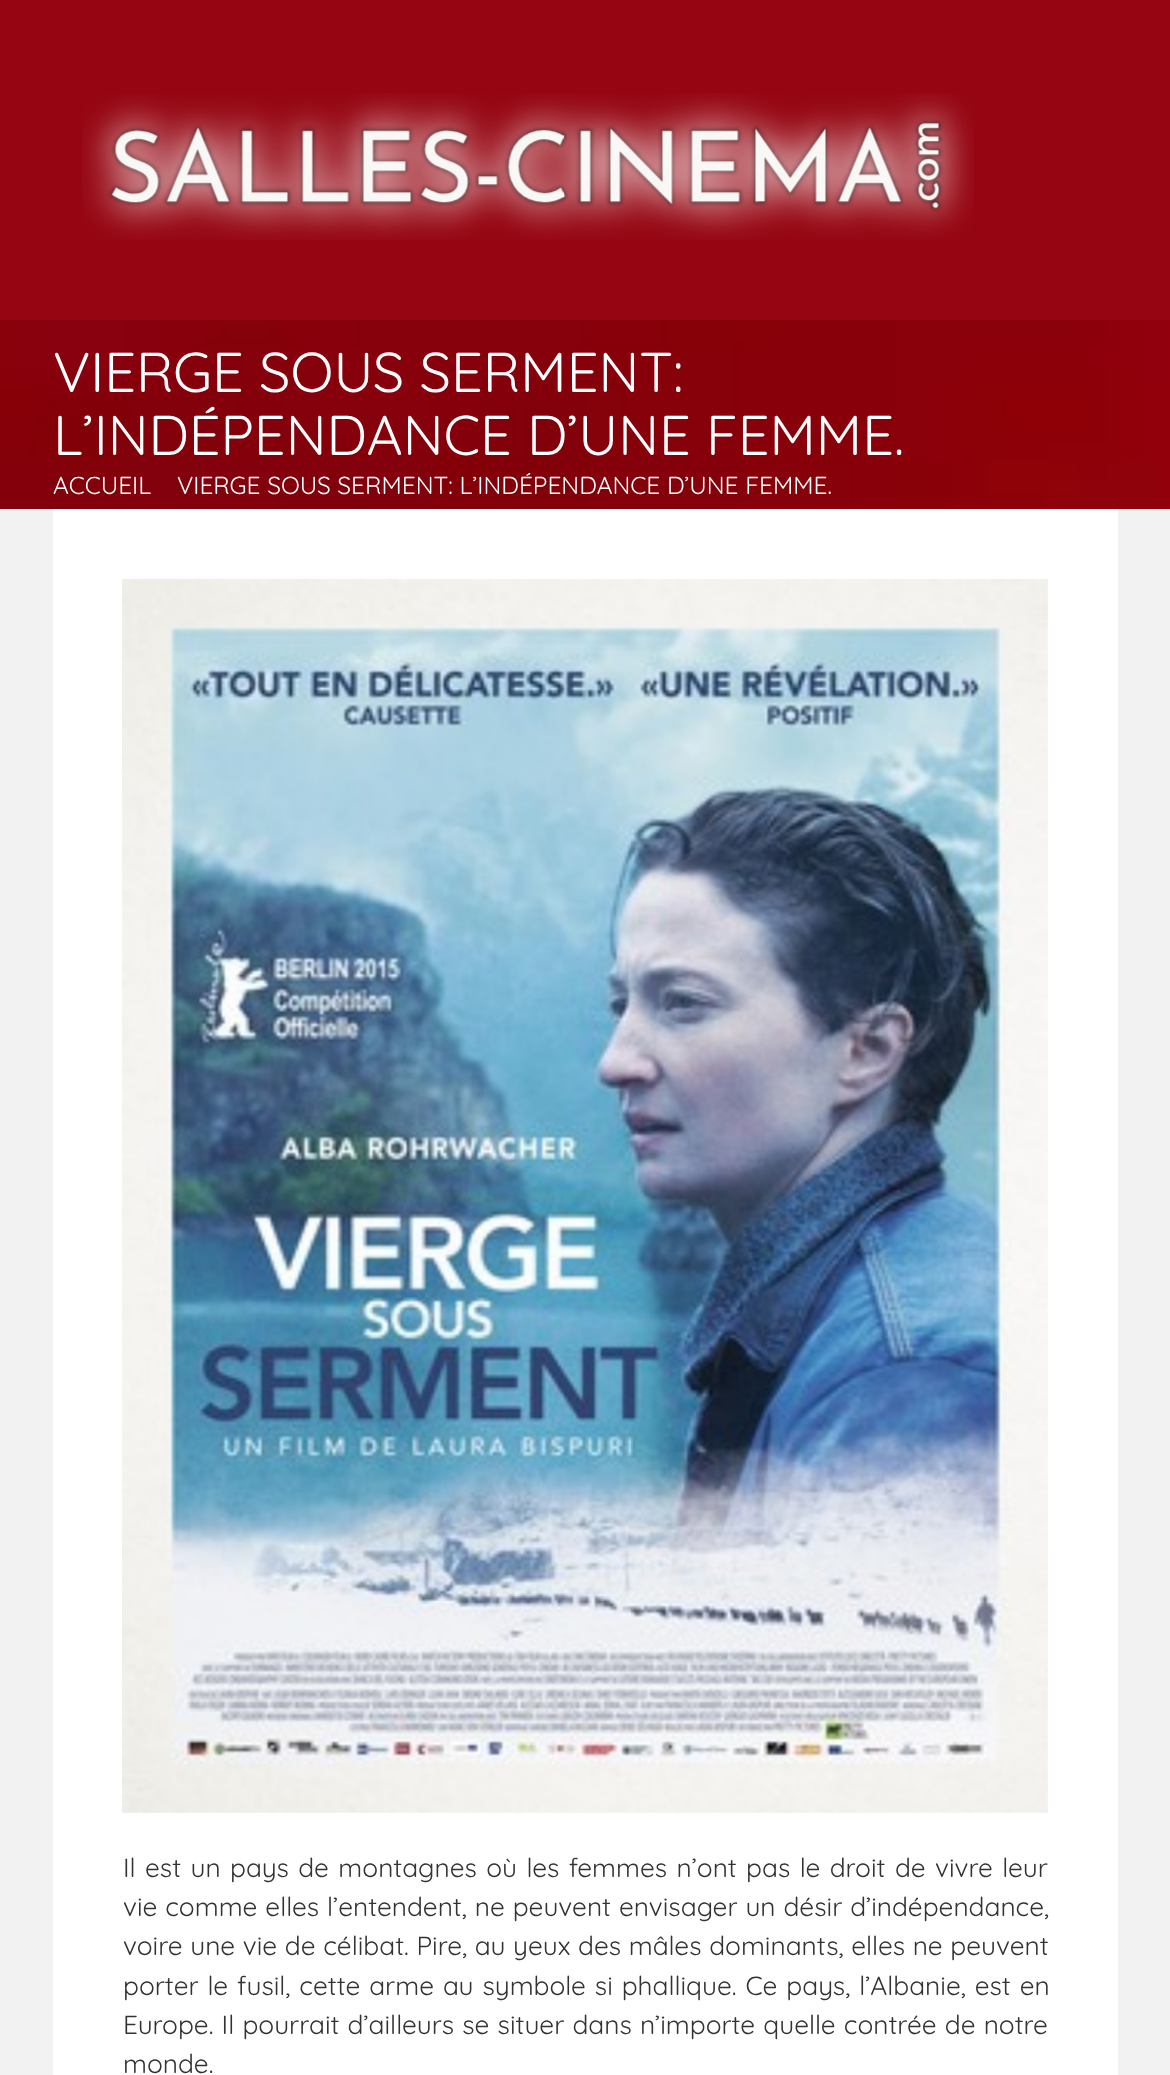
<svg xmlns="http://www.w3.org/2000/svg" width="1170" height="2075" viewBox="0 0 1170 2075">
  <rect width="100%" height="100%" fill="#fff"/>
  <image x="0" y="320" width="1170" height="189" href="img/1.png"/>
  <path d="M0 0h1170v320H0z" fill="#950612"/>
  <image x="82" y="93" width="892" height="147" href="img/2.png"/>
  <path d="M0 509h1170v1566H0z" fill="#f2f2f2"/>
  <path d="M53 509h1065v1566H53z" fill="#fff"/>
  <image x="122" y="579" width="926" height="1234" href="img/3.png"/>
  <g font-family="Quicksand" font-size="56" fill="#fff">
    <text x="53" y="392">VIERGE SOUS SERMENT:</text>
    <text x="53" y="455">L’INDÉPENDANCE D’UNE FEMME.</text>
  </g>
  <g font-family="Quicksand" font-size="24.5" fill="#fff">
    <text x="53" y="494">ACCUEIL</text>
    <text x="177" y="494">VIERGE SOUS SERMENT: L’INDÉPENDANCE D’UNE FEMME.</text>
  </g>
  <g font-family="Quicksand" font-size="26.25" fill="#333">
    <text x="123" y="1877" word-spacing="2.25">Il est un pays de montagnes où les femmes n’ont pas le droit de vivre leur</text>
    <text x="123" y="1916" word-spacing="0.75">vie comme elles l’entendent, ne peuvent envisager un désir d’indépendance,</text>
    <text x="123" y="1955" word-spacing="0.5">voire une vie de célibat. Pire, au yeux des mâles dominants, elles ne peuvent</text>
    <text x="123" y="1995" word-spacing="1.75">porter le fusil, cette arme au symbole si phallique. Ce pays, l’Albanie, est en</text>
    <text x="123" y="2034" word-spacing="1">Europe. Il pourrait d’ailleurs se situer dans n’importe quelle contrée de notre</text>
    <text x="123" y="2073">monde.</text>
  </g>
</svg>
